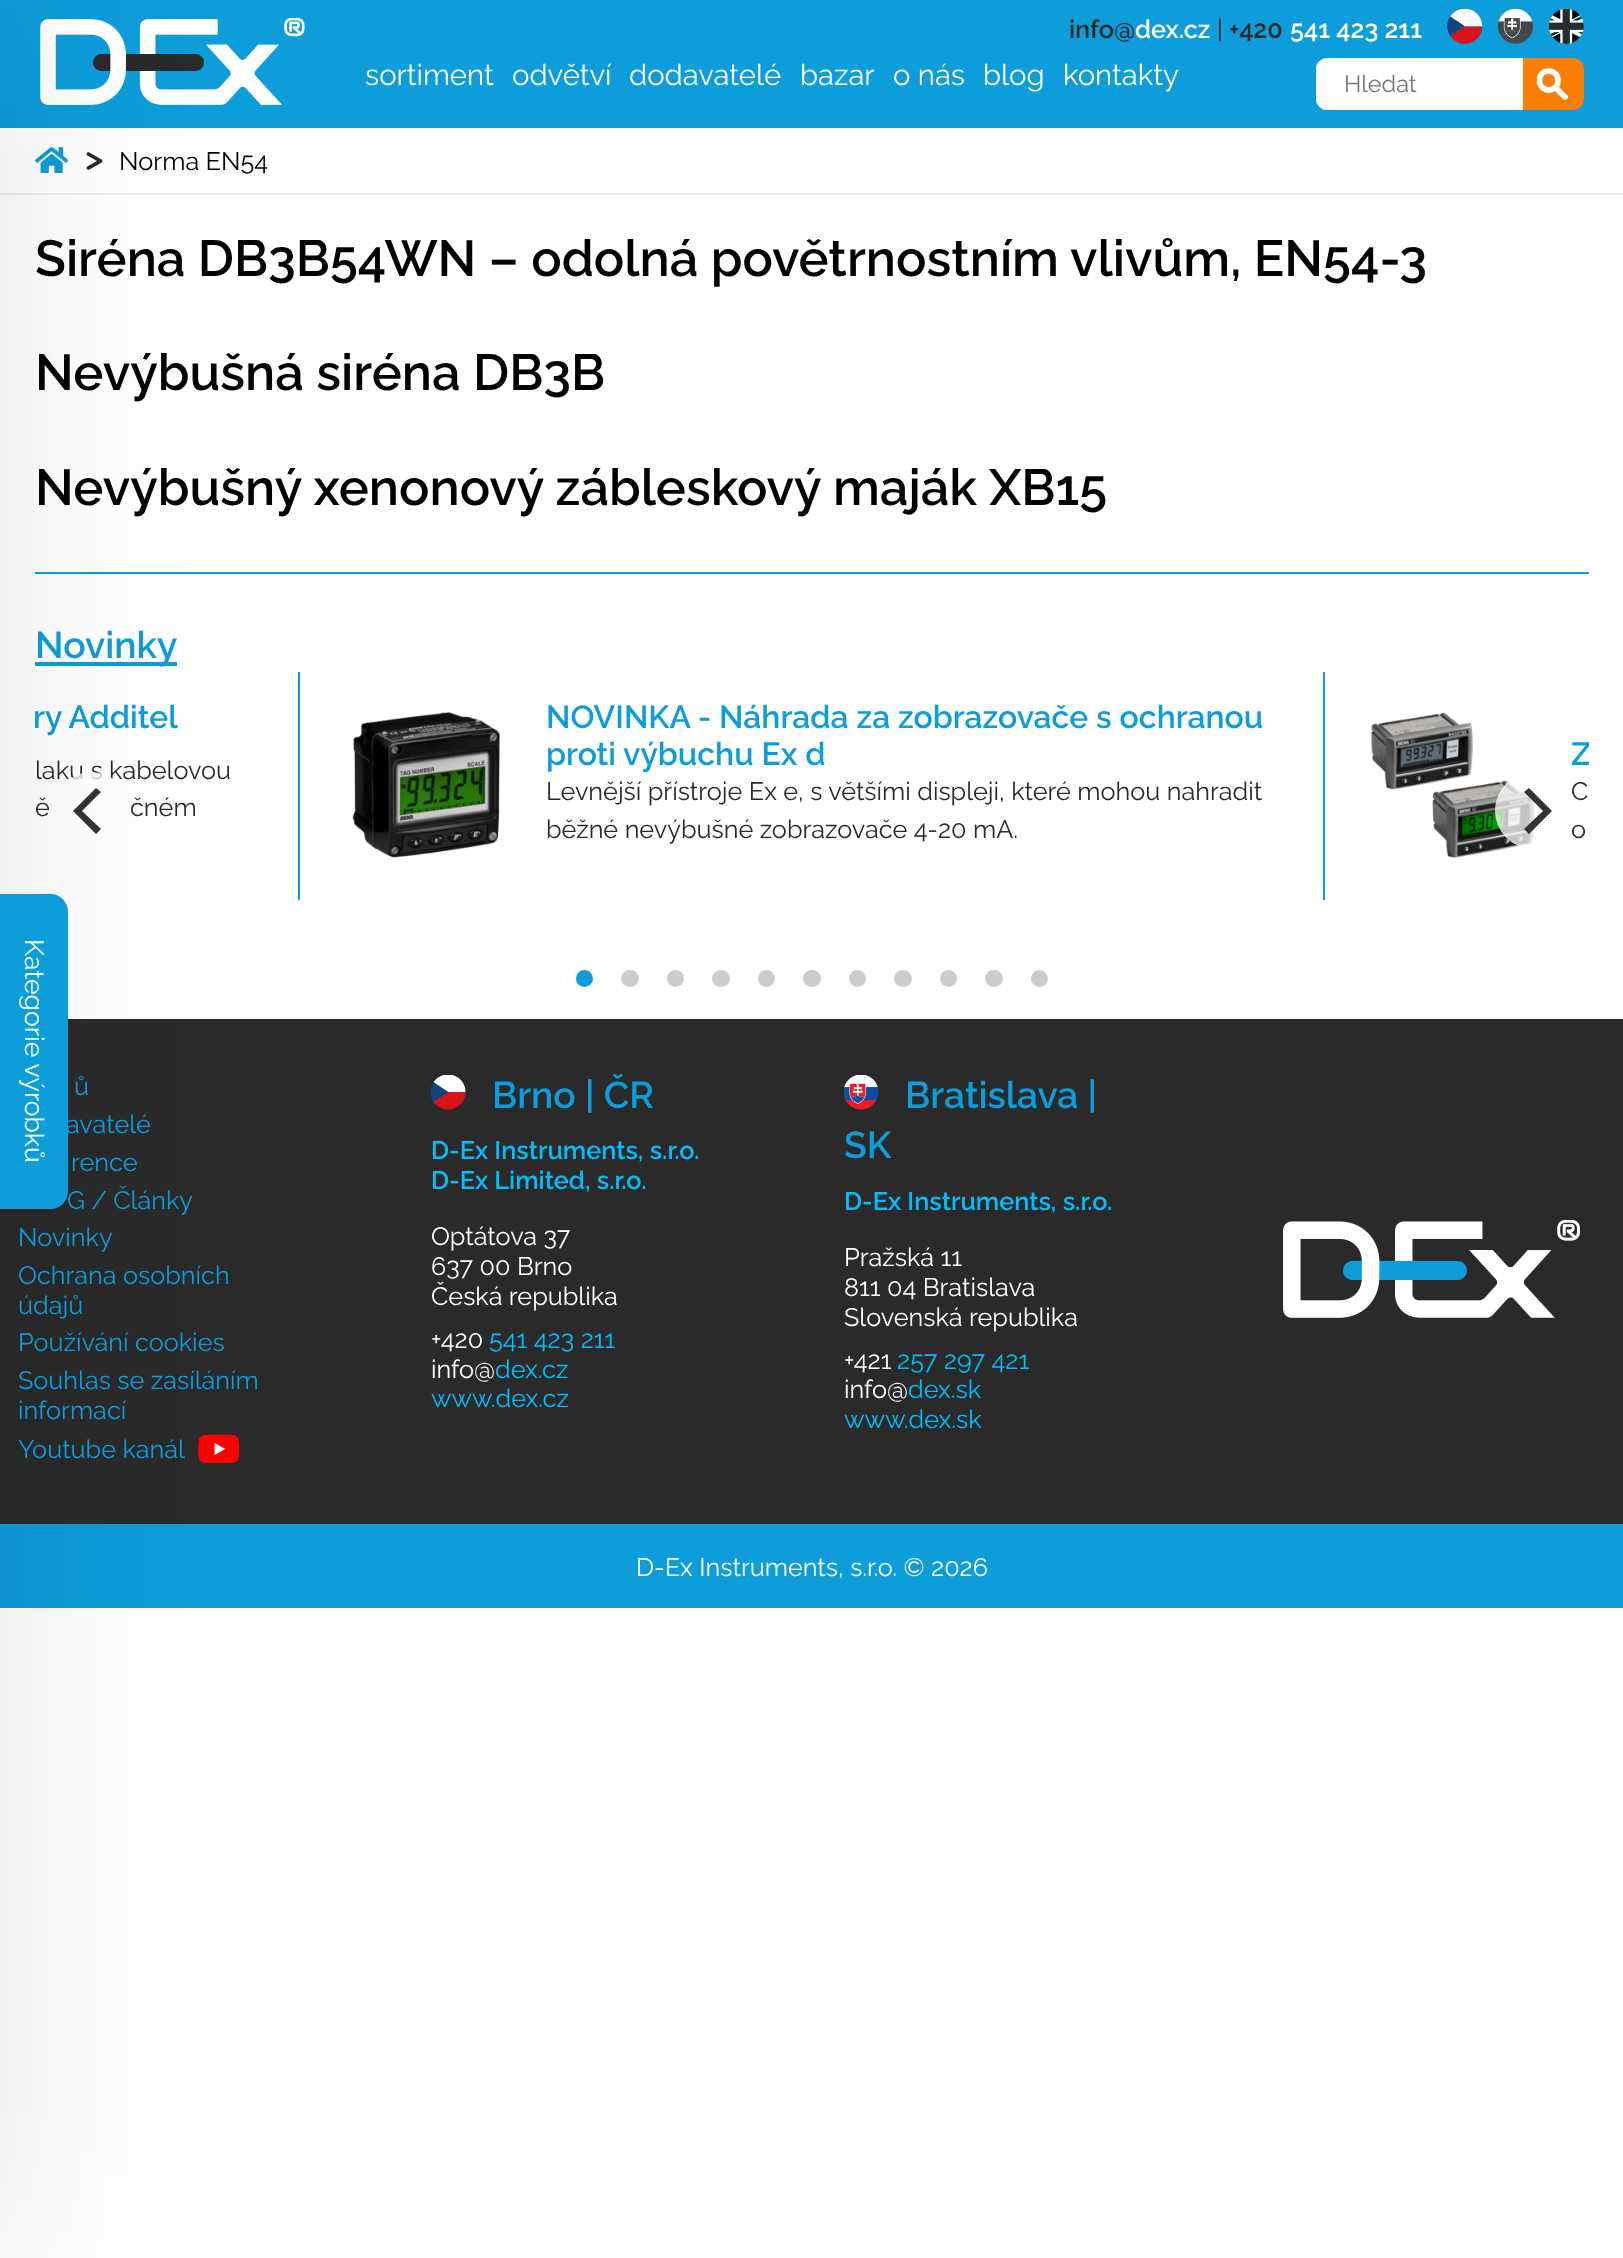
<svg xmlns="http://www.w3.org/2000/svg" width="1623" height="2258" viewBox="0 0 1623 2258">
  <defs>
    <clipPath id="clip1"><path d="M1537 68h31v32H1537z"/></clipPath>
    <clipPath id="clip2"><path d="M35 672h1554v277H35z"/></clipPath>
  </defs>
  <rect width="100%" height="100%" fill="#fff"/>
  <path d="M0 0h1623v128H0z" fill="#0d9ddb"/>
  <image x="40" y="18" width="265" height="87" href="img/1.png"/>
  <image x="1447" y="9" width="35" height="35" href="img/2.png"/>
  <image x="1498" y="9" width="35" height="35" href="img/3.png"/>
  <image x="1549" y="9" width="35" height="35" href="img/4.png"/>
  <path d="M1327 58H1526V110H1327C1321 110 1316 105 1316 99V69C1316 63 1321 58 1327 58Z" fill="#fff"/>
  <path d="M1523 58H1573C1579 58 1584 63 1584 69V99C1584 105 1579 110 1573 110H1523Z" fill="#fb7f00"/>
  <g clip-path="url(#clip1)">
    <path d="M1539.5 80.5C1539.5 68 1558 68 1558 80.5C1558 93 1539.5 93 1539.5 80.5" fill="none" stroke="#fff" stroke-width="5.7"/>
  </g>
  <path d="M1557 89L1565 97" fill="none" stroke="#fff" stroke-width="5.7" stroke-linecap="round"/>
  <path d="M0 193h1623v2H0z" fill="#eee"/>
  <image x="35" y="147" width="33" height="26" href="img/5.png"/>
  <image x="86" y="152" width="17" height="18" href="img/6.png"/>
  <path d="M35 572h1554v2H35z" fill="#0d9ddb"/>
  <path d="M35 662h142v4H35z" fill="#0d9ddb"/>
  <path d="M298 672h2v228H298z" fill="#0d9ddb"/>
  <path d="M1323 672h2v228H1323z" fill="#0d9ddb"/>
  <image x="352" y="712" width="148" height="146" href="img/7.png"/>
  <image x="1370" y="712" width="165" height="146" href="img/8.png"/>
  <circle cx="1533.5" cy="810.5" r="38.5" fill="#ffffffbf"/>
  <path d="M1552 811L1529 788L1524 792L1543 811L1524 829L1529 834Z" fill="#333"/>
  <circle cx="584.5" cy="978.5" r="8.5" fill="#0d9ddb"/>
  <rect x="621" y="970" width="18" height="17" rx="8.5" fill="#ccc"/>
  <circle cx="675.5" cy="978.5" r="8.5" fill="#ccc"/>
  <rect x="712" y="970" width="18" height="17" rx="8.5" fill="#ccc"/>
  <circle cx="766.5" cy="978.5" r="8.5" fill="#ccc"/>
  <rect x="803" y="970" width="18" height="17" rx="8.5" fill="#ccc"/>
  <circle cx="857.5" cy="978.5" r="8.5" fill="#ccc"/>
  <rect x="894" y="970" width="18" height="17" rx="8.5" fill="#ccc"/>
  <circle cx="948.5" cy="978.5" r="8.5" fill="#ccc"/>
  <rect x="985" y="970" width="18" height="17" rx="8.5" fill="#ccc"/>
  <circle cx="1039.5" cy="978.5" r="8.5" fill="#ccc"/>
  <path d="M0 1019h1623v505H0z" fill="#2a2a2a"/>
  <image x="198" y="1434" width="42" height="29" href="img/9.png"/>
  <image x="431" y="1075" width="35" height="35" href="img/10.png"/>
  <image x="844" y="1075" width="35" height="35" href="img/11.png"/>
  <image x="1283" y="1220" width="297" height="98" href="img/12.png"/>
  <path d="M0 1524h1623v84H0z" fill="#0d9ddb"/>
  <text x="1069" y="38" font-family="'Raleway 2'" font-size="25.25" font-weight="100" fill="#2a2a2a">info@</text>
  <text x="1135" y="38" font-family="'Raleway 2'" font-size="25.25" font-weight="100" fill="#fff">dex.cz</text>
  <text x="1217" y="38" font-family="Raleway" font-size="25.25" font-weight="100" fill="#000">|</text>
  <text x="1229" y="38" font-family="'Raleway 2'" font-size="25.25" font-weight="100" fill="#2a2a2a">+420</text>
  <text x="1290" y="38" font-family="'Raleway 2'" font-size="25.25" font-weight="100" fill="#fff">541 423 211</text>
  <g font-family="Raleway" font-size="29.25" font-weight="100" fill="#fff">
    <text x="365" y="85">sortiment</text>
    <text x="512" y="85">odvětví</text>
    <text x="629" y="85">dodavatelé</text>
    <text x="800" y="85">bazar</text>
    <text x="893" y="85">o nás</text>
    <text x="983" y="85">blog</text>
    <text x="1063" y="85">kontakty</text>
  </g>
  <text x="1344" y="92" font-family="Raleway" font-size="23.5" font-weight="100" fill="#757575">Hledat</text>
  <text x="119" y="170" font-family="Raleway" font-size="25.25" font-weight="100" fill="#000">Norma EN54</text>
  <g font-family="'Raleway 2'" font-size="50.55" font-weight="100" fill="#000">
    <text x="35" y="276">Siréna DB3B54WN – odolná povětrnostním vlivům, EN54-3</text>
    <text x="35" y="390">Nevýbušná siréna DB3B</text>
    <text x="35" y="505">Nevýbušný xenonový zábleskový maják XB15</text>
  </g>
  <text x="35" y="658" font-family="'Raleway 2'" font-size="37.25" font-weight="100" fill="#0d9ddb">Novinky</text>
  <text x="33" y="728" font-family="'Raleway 2'" font-size="31.9" font-weight="100" fill="#0d9ddb">ry Additel</text>
  <g font-family="Raleway" font-size="25.25" font-weight="100" fill="#2a2a2a">
    <text x="35" y="779">laku s kabelovou</text>
    <text x="35" y="816">ě</text>
    <text x="130" y="816">čném</text>
  </g>
  <g font-family="'Raleway 2'" font-size="31.9" font-weight="100" fill="#0d9ddb">
    <text x="546" y="728">NOVINKA - Náhrada za zobrazovače s ochranou</text>
    <text x="546" y="765">proti výbuchu Ex d</text>
  </g>
  <g font-family="Raleway" font-size="25.25" font-weight="100" fill="#2a2a2a">
    <text x="546" y="800">Levnější přístroje Ex e, s většími displeji, které mohou nahradit</text>
    <text x="546" y="838">běžné nevýbušné zobrazovače 4-20 mA.</text>
  </g>
  <g clip-path="url(#clip2)">
    <text x="1571" y="765" font-family="'Raleway 2'" font-size="31.9" font-weight="100" fill="#0d9ddb">Z</text>
  </g>
  <g font-family="Raleway" font-size="25.25" font-weight="100" fill="#2a2a2a">
    <text x="1571" y="800">C</text>
    <text x="1571" y="838">o</text>
  </g>
  <circle cx="91.5" cy="810.5" r="38.5" fill="#ffffffbf"/>
  <path d="M73 811L96 834L101 829L82 811L101 792L96 788Z" fill="#333"/>
  <path d="M-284 -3h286v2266H-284z" fill="#0000001a" filter="blur(94.5px)"/>
  <path d="M68 912V1192C68 1201 60 1209 51 1209H-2V894H51C60 894 68 902 68 912Z" fill="#0d9ddb"/>
  <text x="25" y="939" transform="rotate(90 25 939)" font-family="Raleway" font-size="26.5" font-weight="100" fill="#fff">Kategorie výrobků</text>
  <g font-family="Raleway" font-size="25.25" font-weight="100" fill="#0d9ddb">
    <text x="74" y="1095">ů</text>
    <text x="66" y="1133">avatelé</text>
    <text x="71" y="1171">rence</text>
    <text x="67" y="1209">G / Články</text>
    <text x="18" y="1246">Novinky</text>
    <text x="18" y="1284">Ochrana osobních</text>
    <text x="18" y="1314">údajů</text>
    <text x="18" y="1351">Používání cookies</text>
    <text x="18" y="1389">Souhlas se zasíláním</text>
    <text x="18" y="1419">informací</text>
    <text x="18" y="1458">Youtube kanál</text>
  </g>
  <text x="492" y="1108" font-family="'Raleway 2'" font-size="37.25" font-weight="100" fill="#0d9ddb">Brno | ČR</text>
  <g font-family="'Raleway 2'" font-size="25.25" font-weight="100" fill="#00bfff">
    <text x="431" y="1159">D-Ex Instruments, s.r.o.</text>
    <text x="431" y="1189">D-Ex Limited, s.r.o.</text>
  </g>
  <g font-family="Raleway" font-size="25.25" font-weight="100" fill="#fff">
    <text x="431" y="1245">Optátova 37</text>
    <text x="431" y="1275">637 00 Brno</text>
    <text x="431" y="1305">Česká republika</text>
    <text x="431" y="1348">+420</text>
  </g>
  <text x="489" y="1348" font-family="Raleway" font-size="25.25" font-weight="100" fill="#00bfff">541 423 211</text>
  <text x="431" y="1378" font-family="Raleway" font-size="25.25" font-weight="100" fill="#fff">info@</text>
  <g font-family="Raleway" font-size="25.25" font-weight="100" fill="#00bfff">
    <text x="495" y="1378">dex.cz</text>
    <text x="431" y="1407">www.dex.cz</text>
  </g>
  <g font-family="'Raleway 2'" font-size="37.25" font-weight="100" fill="#0d9ddb">
    <text x="905" y="1108">Bratislava |</text>
    <text x="844" y="1158">SK</text>
  </g>
  <text x="844" y="1210" font-family="'Raleway 2'" font-size="25.25" font-weight="100" fill="#00bfff">D-Ex Instruments, s.r.o.</text>
  <g font-family="Raleway" font-size="25.25" font-weight="100" fill="#fff">
    <text x="844" y="1266">Pražská 11</text>
    <text x="844" y="1296">811 04 Bratislava</text>
    <text x="844" y="1326">Slovenská republika</text>
    <text x="844" y="1369">+421</text>
  </g>
  <text x="897" y="1369" font-family="Raleway" font-size="25.25" font-weight="100" fill="#00bfff">257 297 421</text>
  <text x="844" y="1398" font-family="Raleway" font-size="25.25" font-weight="100" fill="#fff">info@</text>
  <g font-family="Raleway" font-size="25.25" font-weight="100" fill="#00bfff">
    <text x="908" y="1398">dex.sk</text>
    <text x="844" y="1428">www.dex.sk</text>
  </g>
  <text x="636" y="1576" font-family="Raleway" font-size="25.25" font-weight="100" fill="#fff">D-Ex Instruments, s.r.o. © 2026</text>
</svg>
